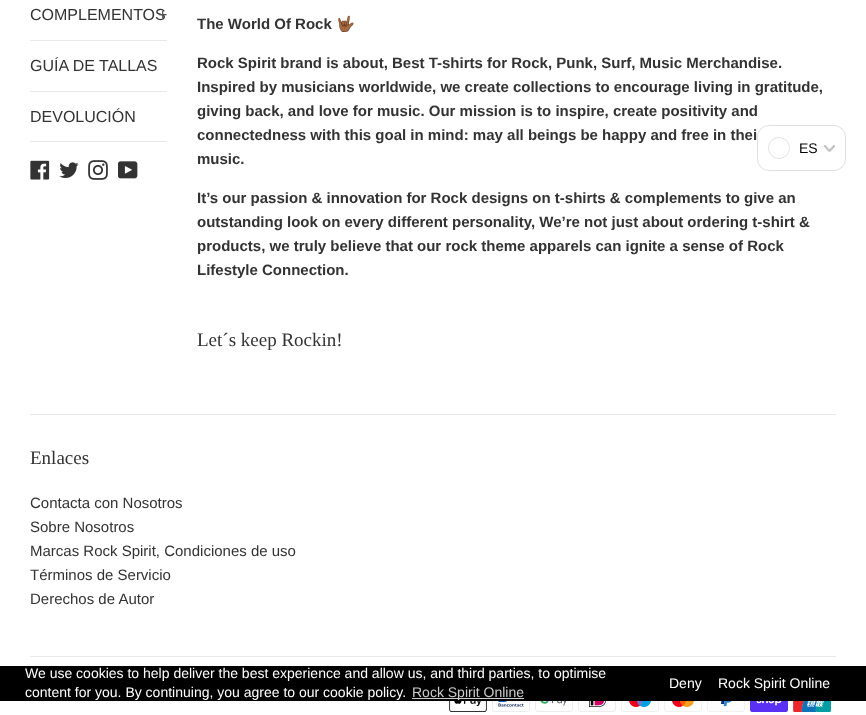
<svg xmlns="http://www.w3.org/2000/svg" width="866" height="715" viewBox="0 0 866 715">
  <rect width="100%" height="100%" fill="#fff"/>
  <path d="M30 40h137v1H30z" fill="#e8e8e8"/>
  <path d="M30 91h137v1H30z" fill="#e8e8e8"/>
  <path d="M30 141h137v1H30z" fill="#e8e8e8"/>
  <image x="30" y="160" width="20" height="20" href="img/1.png"/>
  <image x="59" y="162" width="20" height="16" href="img/2.png"/>
  <image x="88" y="160" width="20" height="20" href="img/3.png"/>
  <image x="118" y="161" width="20" height="18" href="img/4.png"/>
  <path d="M30 414h806v1H30z" fill="#e8e8e8"/>
  <path d="M30 656h806v1H30z" fill="#e8e8e8"/>
  <image x="449" y="701" width="38" height="11" href="img/5.png"/>
  <image x="492" y="701" width="38" height="11" href="img/6.png"/>
  <image x="535" y="701" width="38" height="11" href="img/7.png"/>
  <image x="578" y="701" width="38" height="11" href="img/8.png"/>
  <image x="621" y="701" width="38" height="11" href="img/9.png"/>
  <image x="664" y="701" width="38" height="11" href="img/10.png"/>
  <image x="707" y="701" width="38" height="11" href="img/11.png"/>
  <image x="750" y="701" width="38" height="11" href="img/12.png"/>
  <image x="793" y="701" width="38" height="11" href="img/13.png"/>
  <rect x="757.5" y="125.5" width="88" height="45" rx="11.5" fill="none" stroke="#e0e0e0"/>
  <circle cx="779" cy="148" r="10.5" fill="none" stroke="#e6e3e3"/>
  <image x="823" y="145" width="12" height="7" href="img/14.png"/>
  <path d="M0 666h866v35H0z" fill="#000"/>
  <path d="M412 698h112v1H412z" fill="#ccc"/>
  <text x="30" y="20" font-family="Liberation Sans" font-size="16" fill="#333">COMPLEMENTOS</text>
  <text x="158" y="20" font-family="Liberation Sans" font-size="16" fill="#505050">+</text>
  <g font-family="Liberation Sans" font-size="16" fill="#333">
    <text x="30" y="71">GUÍA DE TALLAS</text>
    <text x="30" y="122">DEVOLUCIÓN</text>
  </g>
  <text x="197" y="29" font-family="Liberation Sans" font-size="15" font-weight="bold" fill="#333">The World Of Rock</text>
  <text x="336" y="29" font-family="Noto Color Emoji" font-size="15" fill="#333">🤟🏾</text>
  <g font-family="Liberation Sans" font-size="15" font-weight="bold" fill="#333">
    <text x="197" y="68">Rock Spirit brand is about, Best T-shirts for Rock, Punk, Surf, Music Merchandise.</text>
    <text x="197" y="92">Inspired by musicians worldwide, we create collections to encourage living in gratitude,</text>
    <text x="197" y="116">giving back, and love for music. Our mission is to inspire, create positivity and</text>
    <text x="197" y="140">connectedness with this goal in mind: may all beings be happy and free in thei</text>
    <text x="197" y="164">music.</text>
    <text x="197" y="203">It’s our passion &amp; innovation for Rock designs on t-shirts &amp; complements to give an</text>
    <text x="197" y="227">outstanding look on every different personality, We’re not just about ordering t-shirt &amp;</text>
    <text x="197" y="251">products, we truly believe that our rock theme apparels can ignite a sense of Rock</text>
    <text x="197" y="275">Lifestyle Connection.</text>
  </g>
  <g font-family="Liberation Serif" font-size="19" fill="#333">
    <text x="197" y="346">Let´s keep Rockin!</text>
    <text x="30" y="464">Enlaces</text>
  </g>
  <g font-family="Liberation Sans" font-size="15" fill="#333">
    <text x="30" y="508">Contacta con Nosotros</text>
    <text x="30" y="532">Sobre Nosotros</text>
    <text x="30" y="556">Marcas Rock Spirit, Condiciones de uso</text>
    <text x="30" y="580">Términos de Servicio</text>
    <text x="30" y="604">Derechos de Autor</text>
  </g>
  <text x="799" y="153" font-family="Liberation Sans" font-size="14" fill="#000">ES</text>
  <g font-family="Liberation Sans" font-size="14" fill="#fff">
    <text x="25" y="678">We use cookies to help deliver the best experience and allow us, and third parties, to optimise</text>
    <text x="25" y="697">content for you. By continuing, you agree to our cookie policy.</text>
  </g>
  <text x="412" y="697" font-family="Liberation Sans" font-size="14" fill="#ccc">Rock Spirit Online</text>
  <g font-family="Liberation Sans" font-size="14" fill="#fff">
    <text x="669" y="688">Deny</text>
    <text x="718" y="688">Rock Spirit Online</text>
  </g>
</svg>
